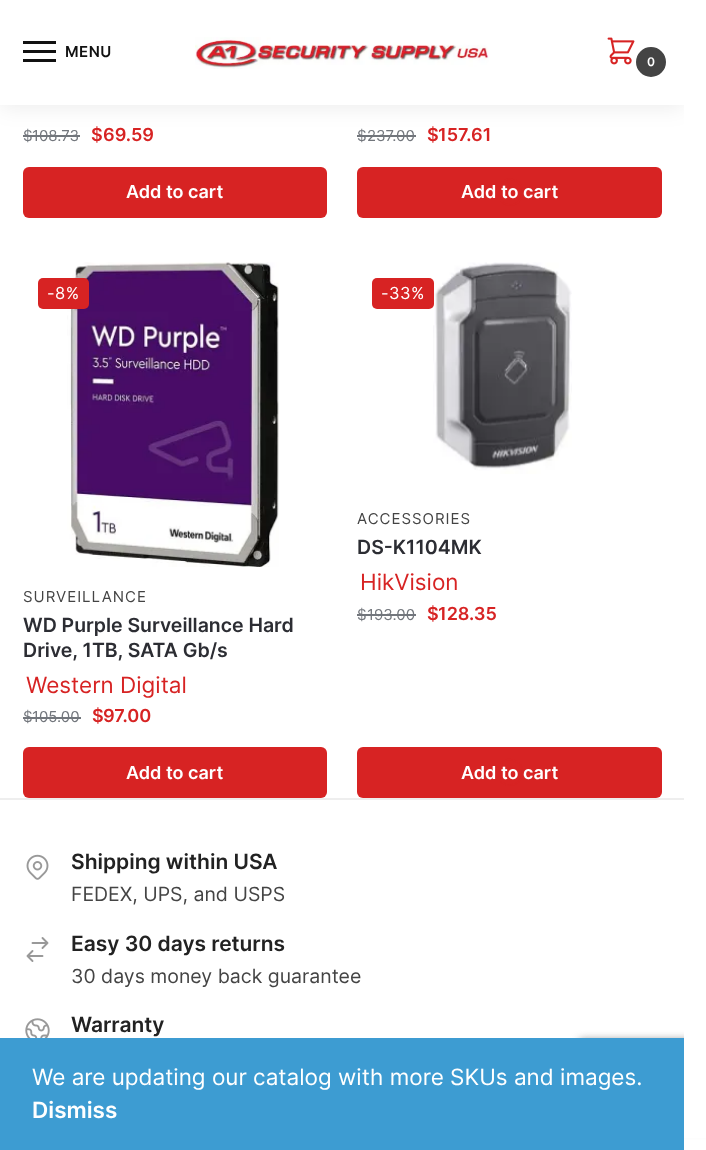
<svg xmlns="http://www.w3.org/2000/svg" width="706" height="1150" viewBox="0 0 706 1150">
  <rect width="100%" height="100%" fill="#fff"/>
  <path d="M33 135h47v2H33z" fill="#72767c"/>
  <path d="M23 135h10v2H23z" fill="#72767c"/>
  <path d="M368 135h48v2H368z" fill="#72767c"/>
  <path d="M357 135h11v2H357z" fill="#72767c"/>
  <path d="M0 2h684v105H0z" fill="#00000014" filter="blur(11px)"/>
  <path d="M0 0h684v105H0z" fill="#fff"/>
  <path d="M23 41h33v3H23z" fill="#111"/>
  <path d="M23 50h33v3H23z" fill="#111"/>
  <path d="M23 59h33v3H23z" fill="#111"/>
  <image x="195" y="37" width="294" height="32" href="img/1.png"/>
  <image x="607" y="37" width="28" height="28" href="img/2.png"/>
  <circle cx="651" cy="62" r="14" fill="#444" stroke="#444" stroke-width="2"/>
  <rect x="579" y="1040" width="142" height="90" rx="3" fill="#808080" filter="blur(4px)"/>
  <path d="M684 0h22v1138H684z" fill="#fff"/>
  <rect x="23" y="167" width="304" height="51" rx="6" fill="#d72323"/>
  <rect x="357" y="167" width="305" height="51" rx="6" fill="#d72323"/>
  <image x="67" y="262" width="212" height="305" href="img/3.png"/>
  <rect x="38" y="278" width="51" height="31" rx="5" fill="#d72323"/>
  <path d="M33 717h48v2H33z" fill="#72767c"/>
  <path d="M23 717h10v2H23z" fill="#72767c"/>
  <rect x="23" y="747" width="304" height="51" rx="6" fill="#d72323"/>
  <image x="433" y="262" width="139" height="212" href="img/4.png"/>
  <rect x="372" y="278" width="62" height="31" rx="5" fill="#d72323"/>
  <path d="M368 614h48v2H368z" fill="#72767c"/>
  <path d="M357 614h11v2H357z" fill="#72767c"/>
  <rect x="357" y="747" width="305" height="51" rx="6" fill="#d72323"/>
  <path d="M0 798h684v2H0z" fill="#eee"/>
  <image x="26" y="854" width="23" height="26" href="img/5.png"/>
  <path d="M32.5 943H47.5M47.5 943L42.5 938M47.5 943L42.5 948M42.5 956H27.5M27.5 956L32.5 961M27.5 956L32.5 951" fill="none" stroke="#999" stroke-width="1.9" stroke-linecap="round" stroke-linejoin="round"/>
  <image x="25" y="1018" width="25" height="20" href="img/6.png"/>
  <path d="M0 1038h684v112H0z" fill="#3d9cd2"/>
  <text x="65" y="57" font-family="Inter" font-size="15" font-weight="600" letter-spacing="0.5" fill="#111">MENU</text>
  <text x="647" y="66" font-family="Inter" font-size="12" font-weight="600" fill="#fff">0</text>
  <g font-family="Inter" font-size="15" fill="#72767c">
    <text x="23" y="141">$</text>
    <text x="32" y="141">108.73</text>
  </g>
  <g font-family="Inter" font-size="18" font-weight="600" fill="#d72323">
    <text x="91" y="141">$</text>
    <text x="103" y="141">69.59</text>
  </g>
  <text x="126" y="198" font-family="Inter" font-size="18" font-weight="600" fill="#fff">Add to cart</text>
  <g font-family="Inter" font-size="15" fill="#72767c">
    <text x="357" y="141">$</text>
    <text x="367" y="141">237.00</text>
  </g>
  <g font-family="Inter" font-size="18" font-weight="600" fill="#d72323">
    <text x="427" y="141">$</text>
    <text x="438" y="141">157.61</text>
  </g>
  <text x="461" y="198" font-family="Inter" font-size="18" font-weight="600" fill="#fff">Add to cart</text>
  <path d="M501 183C504 180 508.5 178.5 512.5 179.5C527.5 182.5 525 205 510 205C506.5 205 503.5 203.5 501 201" fill="none" stroke="#d72323" stroke-width="1.5"/>
  <text x="47" y="299" font-family="Inter" font-size="16.5" letter-spacing="0.5" fill="#fff">-8%</text>
  <text x="23" y="602" font-family="Inter" font-size="15" letter-spacing="1" fill="#444">SURVEILLANCE</text>
  <g font-family="Inter" font-size="19.5" font-weight="600" fill="#2c2d33">
    <text x="23" y="632">WD Purple Surveillance Hard</text>
    <text x="23" y="657">Drive, 1TB, SATA Gb/s</text>
  </g>
  <text x="26" y="693" font-family="Inter" font-size="22.5" fill="#d72323">Western Digital</text>
  <g font-family="Inter" font-size="15" fill="#72767c">
    <text x="23" y="722">$</text>
    <text x="32" y="722">105.00</text>
  </g>
  <g font-family="Inter" font-size="18" font-weight="600" fill="#d72323">
    <text x="92" y="722">$</text>
    <text x="103" y="722">97.00</text>
  </g>
  <text x="126" y="779" font-family="Inter" font-size="18" font-weight="600" fill="#fff">Add to cart</text>
  <text x="381" y="299" font-family="Inter" font-size="16.5" letter-spacing="0.5" fill="#fff">-33%</text>
  <text x="357" y="524" font-family="Inter" font-size="15" letter-spacing="1" fill="#444">ACCESSORIES</text>
  <text x="357" y="554" font-family="Inter" font-size="19.5" font-weight="600" fill="#2c2d33">DS-K1104MK</text>
  <text x="360" y="590" font-family="Inter" font-size="22.5" fill="#d72323">HikVision</text>
  <g font-family="Inter" font-size="15" fill="#72767c">
    <text x="357" y="620">$</text>
    <text x="367" y="620">193.00</text>
  </g>
  <g font-family="Inter" font-size="18" font-weight="600" fill="#d72323">
    <text x="427" y="620">$</text>
    <text x="438" y="620">128.35</text>
  </g>
  <text x="461" y="779" font-family="Inter" font-size="18" font-weight="600" fill="#fff">Add to cart</text>
  <path d="M501 763.5C504 760.5 508.5 759 512.5 760C527.5 763 525 785 510 785C506.5 785 503.5 784 501 781.5" fill="none" stroke="#d72323" stroke-width="1.5"/>
  <text x="71" y="869" font-family="Inter" font-size="21" font-weight="600" fill="#222">Shipping within USA</text>
  <text x="71" y="901" font-family="Inter" font-size="19.5" fill="#444">FEDEX, UPS, and USPS</text>
  <text x="71" y="951" font-family="Inter" font-size="21" font-weight="600" fill="#222">Easy 30 days returns</text>
  <text x="71" y="983" font-family="Inter" font-size="19.5" fill="#444">30 days money back guarantee</text>
  <text x="71" y="1032" font-family="Inter" font-size="21" font-weight="600" fill="#222">Warranty</text>
  <text x="32" y="1085" font-family="Inter" font-size="22.5" fill="#fff">We are updating our catalog with more SKUs and images.</text>
  <text x="32" y="1118" font-family="Inter" font-size="22.5" font-weight="600" fill="#fff">Dismiss</text>
</svg>
